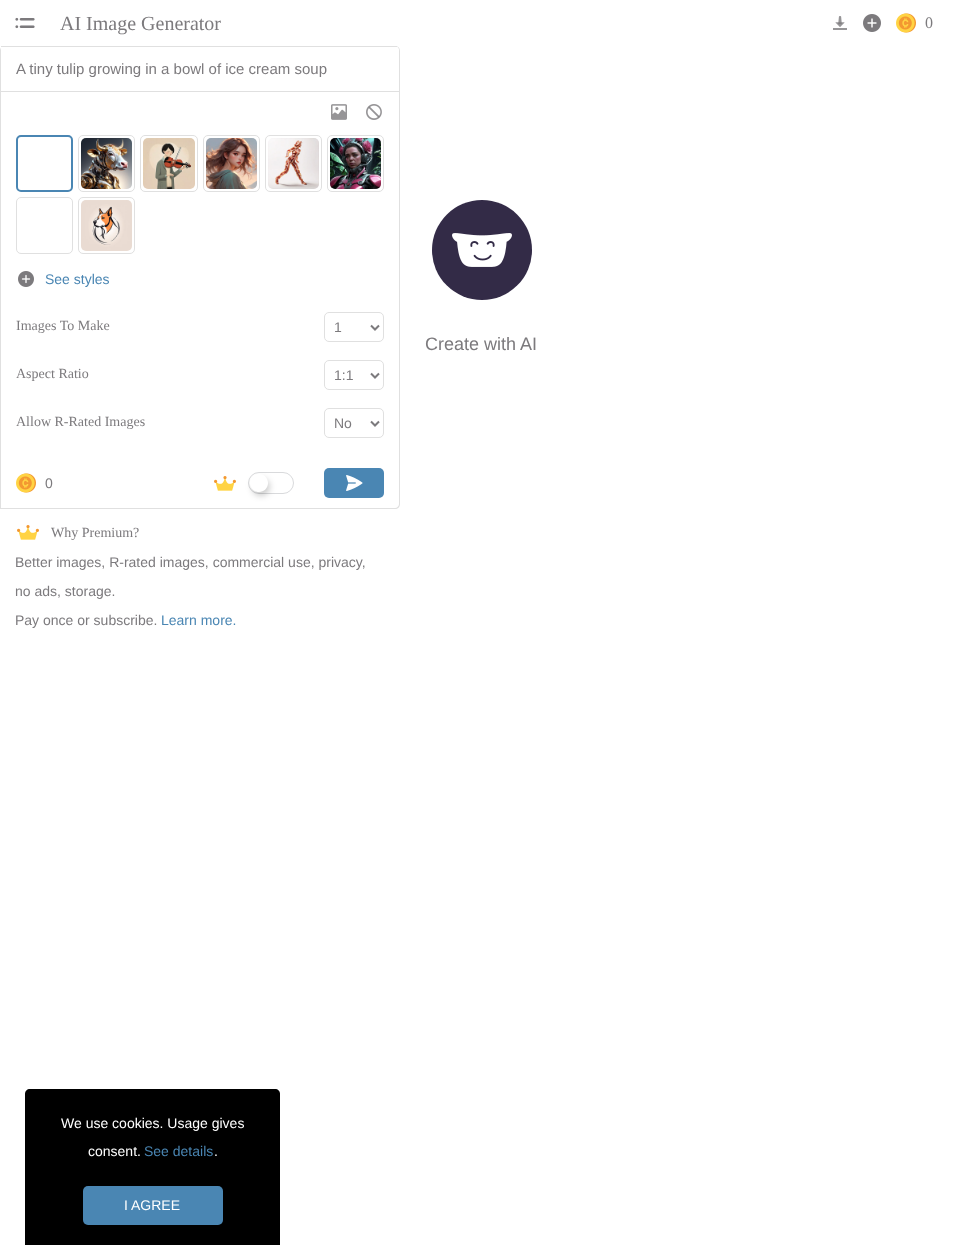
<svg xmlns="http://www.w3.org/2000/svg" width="963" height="1245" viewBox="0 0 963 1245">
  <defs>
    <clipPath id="clip1"><path d="M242 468H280V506H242ZM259 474C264 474 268 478 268 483C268 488 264 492 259 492C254 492 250 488 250 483C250 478 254 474 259 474Z" clip-rule="evenodd"/></clipPath>
  </defs>
  <rect width="100%" height="100%" fill="#fff"/>
  <image x="15" y="17" width="20" height="12" href="img/1.png"/>
  <image x="833" y="16" width="14" height="14" href="img/2.png"/>
  <image x="863" y="14" width="18" height="18" href="img/3.png"/>
  <image x="896" y="13" width="20" height="20" href="img/4.png"/>
  <path d="M5 46H395C398 46 400 48 400 51V504C400 507 398 509 395 509H0V51C0 48 2 46 5 46ZM5 46H395C397 46 399 48 399 51V504C399 506 397 508 395 508H1V51C1 48 3 46 5 46Z" fill="#e0e0e0" fill-rule="evenodd"/>
  <path d="M1 46H394C397 46 399 48 399 51V92H1Z" fill="#fff"/>
  <path d="M1 46h396v1H1z" fill="#e0e0e0"/>
  <path d="M1 91h398v1H1z" fill="#e0e0e0"/>
  <image x="331" y="104" width="16" height="16" href="img/5.png"/>
  <image x="366" y="104" width="16" height="16" href="img/6.png"/>
  <rect x="17" y="136" width="55" height="55" rx="4" fill="none" stroke="#4a86b3" stroke-width="2"/>
  <rect x="78.5" y="135.5" width="56" height="56" rx="4.5" fill="none" stroke="#e0e0e0"/>
  <image x="81" y="138" width="51" height="51" href="img/7.png"/>
  <rect x="140.5" y="135.5" width="57" height="56" rx="4.5" fill="none" stroke="#e0e0e0"/>
  <image x="143" y="138" width="52" height="51" href="img/8.png"/>
  <rect x="203.5" y="135.5" width="56" height="56" rx="4.5" fill="none" stroke="#e0e0e0"/>
  <image x="206" y="138" width="51" height="51" href="img/9.png"/>
  <rect x="265.5" y="135.5" width="56" height="56" rx="4.5" fill="none" stroke="#e0e0e0"/>
  <image x="268" y="138" width="51" height="51" href="img/10.png"/>
  <rect x="327.5" y="135.5" width="56" height="56" rx="4.5" fill="none" stroke="#e0e0e0"/>
  <image x="330" y="138" width="51" height="51" href="img/11.png"/>
  <rect x="16.5" y="197.5" width="56" height="56" rx="4.5" fill="none" stroke="#e0e0e0"/>
  <rect x="78.5" y="197.5" width="56" height="56" rx="4.5" fill="none" stroke="#e0e0e0"/>
  <image x="81" y="200" width="51" height="51" href="img/12.png"/>
  <image x="18" y="271" width="16" height="16" href="img/13.png"/>
  <rect x="324.5" y="312.5" width="59" height="29" rx="4.5" fill="none" stroke="#e0e0e0"/>
  <path d="M371 325.5L375 329.5L379 325.5" fill="none" stroke="#7c7a7d" stroke-width="2"/>
  <rect x="324.5" y="360.5" width="59" height="29" rx="4.5" fill="none" stroke="#e0e0e0"/>
  <path d="M371 373.5L375 377.5L379 373.5" fill="none" stroke="#7c7a7d" stroke-width="2"/>
  <rect x="324.5" y="408.5" width="59" height="29" rx="4.5" fill="none" stroke="#e0e0e0"/>
  <path d="M371 421.5L375 425.5L379 421.5" fill="none" stroke="#7c7a7d" stroke-width="2"/>
  <image x="16" y="473" width="20" height="20" href="img/4.png"/>
  <image x="214" y="476" width="22" height="15" href="img/14.png"/>
  <rect x="248.5" y="472.5" width="45" height="21" rx="10.5" fill="none" stroke="#d9dadc"/>
  <g clip-path="url(#clip1)">
    <rect x="252" y="478" width="18" height="18" rx="9" fill="#00000033" filter="blur(3px)"/>
  </g>
  <rect x="324" y="468" width="60" height="30" rx="5" fill="#4a86b3"/>
  <image x="346" y="475" width="17" height="16" href="img/15.png"/>
  <image x="17" y="525" width="22" height="15" href="img/14.png"/>
  <circle cx="482" cy="250" r="50" fill="#332b47"/>
  <image x="452" y="233" width="60" height="34" href="img/16.png"/>
  <path d="M30 1089H275C278 1089 280 1091 280 1094V1245H25V1094C25 1091 27 1089 30 1089Z" fill="#000"/>
  <rect x="83" y="1186" width="140" height="39" rx="5" fill="#4a86b3"/>
  <text x="60" y="30" font-family="Liberation Serif" font-size="20" fill="#7c7a7d">AI Image Generator</text>
  <text x="925" y="28" font-family="Liberation Serif" font-size="16" fill="#7c7a7d">0</text>
  <text x="16" y="74" font-family="Liberation Sans" font-size="15" fill="#7c7a7d">A tiny tulip growing in a bowl of ice cream soup</text>
  <text x="45" y="284" font-family="Liberation Sans" font-size="14" fill="#4a86b3">See styles</text>
  <text x="16" y="330" font-family="Liberation Serif" font-size="14" fill="#7c7a7d">Images To Make</text>
  <text x="334" y="332" font-family="Liberation Sans" font-size="14" fill="#7c7a7d">1</text>
  <text x="16" y="378" font-family="Liberation Serif" font-size="14" fill="#7c7a7d">Aspect Ratio</text>
  <text x="334" y="380" font-family="Liberation Sans" font-size="14" fill="#7c7a7d">1:1</text>
  <text x="16" y="426" font-family="Liberation Serif" font-size="14" fill="#7c7a7d">Allow R-Rated Images</text>
  <g font-family="Liberation Sans" font-size="14" fill="#7c7a7d">
    <text x="334" y="428">No</text>
    <text x="45" y="488">0</text>
  </g>
  <text x="51" y="537" font-family="Liberation Serif" font-size="14" fill="#7c7a7d">Why Premium?</text>
  <g font-family="Liberation Sans" font-size="14" fill="#7c7a7d">
    <text x="15" y="567">Better images, R-rated images, commercial use, privacy,</text>
    <text x="15" y="596">no ads, storage.</text>
    <text x="15" y="625">Pay once or subscribe.</text>
  </g>
  <text x="161" y="625" font-family="Liberation Sans" font-size="14" fill="#4a86b3">Learn more.</text>
  <text x="425" y="350" font-family="Liberation Sans" font-size="18" fill="#7c7a7d">Create with AI</text>
  <g font-family="Liberation Sans" font-size="14" fill="#fff">
    <text x="61" y="1128">We use cookies. Usage gives</text>
    <text x="88" y="1156">consent.</text>
  </g>
  <text x="144" y="1156" font-family="Liberation Sans" font-size="14" fill="#4a86b3">See details</text>
  <g font-family="Liberation Sans" font-size="14" fill="#fff">
    <text x="214" y="1156">.</text>
    <text x="124" y="1210">I AGREE</text>
  </g>
</svg>
